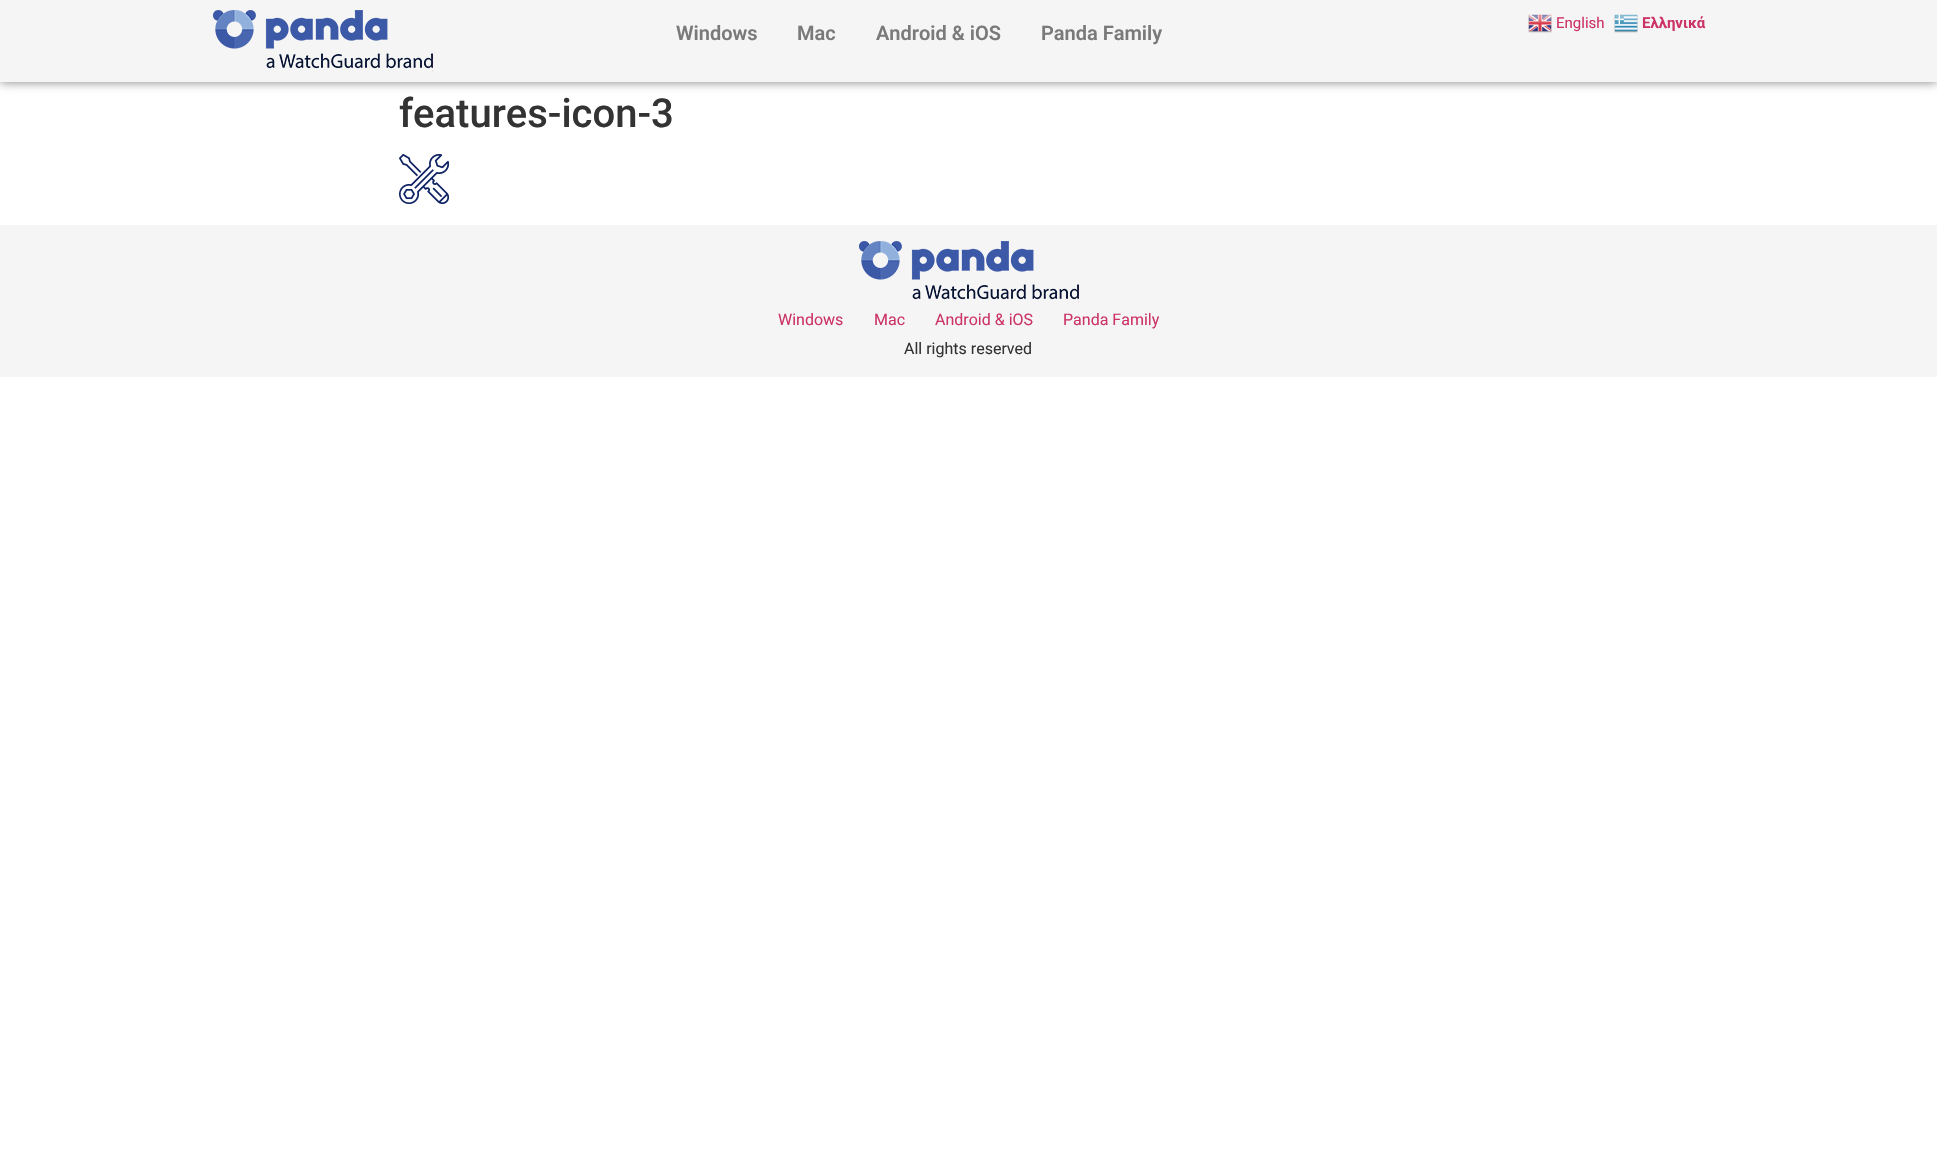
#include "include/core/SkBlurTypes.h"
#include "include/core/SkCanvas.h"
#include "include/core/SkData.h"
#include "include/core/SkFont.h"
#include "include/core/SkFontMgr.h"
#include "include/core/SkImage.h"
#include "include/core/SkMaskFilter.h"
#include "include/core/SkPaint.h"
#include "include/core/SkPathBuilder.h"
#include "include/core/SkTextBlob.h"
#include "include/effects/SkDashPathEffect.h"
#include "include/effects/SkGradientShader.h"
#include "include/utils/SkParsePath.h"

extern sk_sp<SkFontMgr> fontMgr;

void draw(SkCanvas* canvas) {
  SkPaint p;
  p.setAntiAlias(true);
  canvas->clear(SK_ColorWHITE);
  p.setColor(SkColorSetARGB(128, 0, 0, 0));
  p.setMaskFilter(SkMaskFilter::MakeBlur(kNormal_SkBlurStyle, 5));
  canvas->drawRect(SkRect::MakeLTRB(0, 0, 1937, 82), p);
  p.setMaskFilter(nullptr);
  p.setColor(SkColorSetRGB(245, 245, 245));
  canvas->drawRect(SkRect::MakeLTRB(0, 0, 1937, 82), p);
  canvas->drawImageRect(SkImages::DeferredFromEncodedData(SkData::MakeFromFileName("images/1.png")), SkRect::MakeLTRB(213, 10, 433, 72), SkSamplingOptions());
  canvas->drawImageRect(SkImages::DeferredFromEncodedData(SkData::MakeFromFileName("images/2.png")), SkRect::MakeLTRB(1528, 14, 1552, 33), SkSamplingOptions());
  canvas->drawImageRect(SkImages::DeferredFromEncodedData(SkData::MakeFromFileName("images/3.png")), SkRect::MakeLTRB(1614, 14, 1638, 33), SkSamplingOptions());
  canvas->drawImageRect(SkImages::DeferredFromEncodedData(SkData::MakeFromFileName("images/4.png")), SkRect::MakeLTRB(399, 154, 449, 204), SkSamplingOptions());
  canvas->drawRect(SkRect::MakeLTRB(0, 225, 1937, 377), p);
  canvas->drawImageRect(SkImages::DeferredFromEncodedData(SkData::MakeFromFileName("images/1.png")), SkRect::MakeLTRB(859, 241, 1079, 303), SkSamplingOptions());
  SkFont font1(fontMgr->matchFamilyStyle("Roboto", SkFontStyle(600, SkFontStyle::kNormal_Width, SkFontStyle::kUpright_Slant)), 20);
  font1.setSubpixel(true);
  p.setColor(SkColorSetRGB(122, 122, 122));
  canvas->drawString("Windows", 676, 40, font1, p);
  canvas->drawString("Mac", 797, 40, font1, p);
  canvas->drawString("Android & iOS", 876, 40, font1, p);
  canvas->drawString("Panda Family", 1041, 40, font1, p);
  SkFont font2(fontMgr->matchFamilyStyle("Roboto", SkFontStyle::Normal()), 15);
  font2.setSubpixel(true);
  p.setColor(SkColorSetRGB(204, 51, 102));
  canvas->drawString("English", 1556, 28, font2, p);
  SkFont font3(fontMgr->matchFamilyStyle("Roboto", SkFontStyle::Bold()), 15);
  font3.setSubpixel(true);
  canvas->drawString("Ελληνικά", 1642, 28, font3, p);
  SkFont font4(fontMgr->matchFamilyStyle("Roboto", SkFontStyle(500, SkFontStyle::kNormal_Width, SkFontStyle::kUpright_Slant)), 40);
  font4.setSubpixel(true);
  p.setColor(SkColorSetRGB(51, 51, 51));
  canvas->drawString("features-icon-3", 399, 127, font4, p);
  SkFont font5(fontMgr->matchFamilyStyle("Roboto", SkFontStyle::Normal()), 16);
  font5.setSubpixel(true);
  p.setColor(SkColorSetRGB(204, 51, 102));
  canvas->drawString("Windows", 778, 325, font5, p);
  canvas->drawString("Mac", 874, 325, font5, p);
  canvas->drawString("Android & iOS", 935, 325, font5, p);
  canvas->drawString("Panda Family", 1063, 325, font5, p);
  p.setColor(SkColorSetRGB(51, 51, 51));
  canvas->drawString("All rights reserved", 904, 354, font5, p);
}
